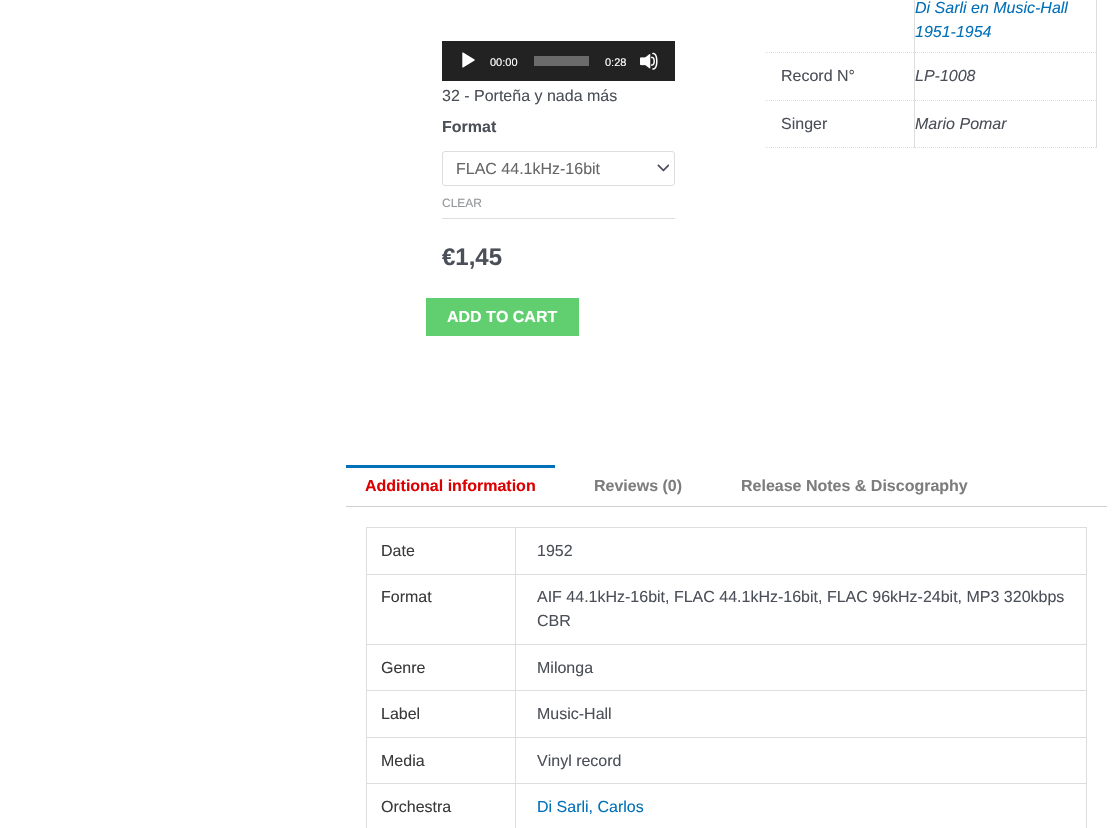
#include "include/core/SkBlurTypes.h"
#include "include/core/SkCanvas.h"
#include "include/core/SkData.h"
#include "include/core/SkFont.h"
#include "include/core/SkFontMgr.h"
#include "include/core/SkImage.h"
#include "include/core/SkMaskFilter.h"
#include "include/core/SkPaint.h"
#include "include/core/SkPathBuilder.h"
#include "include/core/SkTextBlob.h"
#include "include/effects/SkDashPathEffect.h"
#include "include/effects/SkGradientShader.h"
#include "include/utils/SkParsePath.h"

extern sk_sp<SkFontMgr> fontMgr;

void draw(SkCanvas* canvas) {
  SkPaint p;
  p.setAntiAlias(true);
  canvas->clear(SK_ColorWHITE);
  p.setColor(SkColorSetRGB(34, 34, 34));
  canvas->drawRect(SkRect::MakeLTRB(442, 41, 675, 81), p);
  canvas->drawImageRect(SkImages::DeferredFromEncodedData(SkData::MakeFromFileName("images/1.png")), SkRect::MakeLTRB(462, 52, 475, 68), SkSamplingOptions());
  p.setColor(SkColorSetRGB(107, 107, 107));
  canvas->drawRect(SkRect::MakeLTRB(534, 56, 589, 66), p);
  canvas->drawImageRect(SkImages::DeferredFromEncodedData(SkData::MakeFromFileName("images/2.png")), SkRect::MakeLTRB(640, 52, 658, 70), SkSamplingOptions());
  p.setColor(SkColorSetRGB(221, 221, 221));
  canvas->drawRect(SkRect::MakeLTRB(442, 218, 675, 219), p);
  canvas->drawImageRect(SkImages::DeferredFromEncodedData(SkData::MakeFromFileName("images/3.png")), SkRect::MakeLTRB(657, 164, 669, 172), SkSamplingOptions());
  p.setStyle(SkPaint::kStroke_Style);
  p.setStrokeWidth(1);
  canvas->drawRoundRect(SkRect::MakeLTRB(442.5f, 151.5f, 674.5f, 185.5f), 2.5f, 2.5f, p);
  p.setStyle(SkPaint::kFill_Style);
  p.setColor(SkColorSetRGB(97, 206, 112));
  canvas->drawRect(SkRect::MakeLTRB(426, 298, 579, 336), p);
  p.setColor(SkColorSetRGB(221, 221, 221));
  canvas->drawRect(SkRect::MakeLTRB(914, 0, 915, 148), p);
  p.setStyle(SkPaint::kStroke_Style);
  p.setPathEffect(SkDashPathEffect::Make({{1, 1}}, 0));
  canvas->drawPath(SkPathBuilder().moveTo(765, 52.5f).lineTo(915, 52.5f).detach(), p);
  p.setPathEffect(nullptr);
  p.setStyle(SkPaint::kFill_Style);
  canvas->drawRect(SkRect::MakeLTRB(1096, 0, 1097, 148), p);
  p.setStyle(SkPaint::kStroke_Style);
  p.setPathEffect(SkDashPathEffect::Make({{1, 1}}, 0));
  canvas->drawPath(SkPathBuilder().moveTo(915, 52.5f).lineTo(1097, 52.5f).detach(), p);
  p.setPathEffect(nullptr);
  p.setPathEffect(SkDashPathEffect::Make({{1, 1}}, 0));
  canvas->drawPath(SkPathBuilder().moveTo(765, 100.5f).lineTo(915, 100.5f).detach(), p);
  p.setPathEffect(nullptr);
  p.setPathEffect(SkDashPathEffect::Make({{1, 1}}, 0));
  canvas->drawPath(SkPathBuilder().moveTo(915, 100.5f).lineTo(1097, 100.5f).detach(), p);
  p.setPathEffect(nullptr);
  p.setPathEffect(SkDashPathEffect::Make({{1, 1}}, 0));
  canvas->drawPath(SkPathBuilder().moveTo(765, 147.5f).lineTo(915, 147.5f).detach(), p);
  p.setPathEffect(nullptr);
  p.setPathEffect(SkDashPathEffect::Make({{1, 1}}, 0));
  canvas->drawPath(SkPathBuilder().moveTo(915, 147.5f).lineTo(1097, 147.5f).detach(), p);
  p.setPathEffect(nullptr);
  p.setStyle(SkPaint::kFill_Style);
  p.setColor(SkColorSetRGB(1, 112, 185));
  canvas->drawRect(SkRect::MakeLTRB(346, 465, 555, 468), p);
  p.setColor(SkColorSetRGB(211, 206, 210));
  canvas->drawRect(SkRect::MakeLTRB(346, 506, 1107, 507), p);
  p.setColor(SkColorSetRGB(221, 221, 221));
  canvas->drawRect(SkRect::MakeLTRB(366, 527, 1087, 528), p);
  canvas->drawRect(SkRect::MakeLTRB(515, 528, 516, 828), p);
  canvas->drawRect(SkRect::MakeLTRB(366, 574, 516, 575), p);
  canvas->drawRect(SkRect::MakeLTRB(366, 528, 367, 575), p);
  canvas->drawRect(SkRect::MakeLTRB(1086, 528, 1087, 828), p);
  canvas->drawRect(SkRect::MakeLTRB(516, 574, 1087, 575), p);
  canvas->drawRect(SkRect::MakeLTRB(366, 644, 1087, 645), p);
  canvas->drawRect(SkRect::MakeLTRB(366, 575, 367, 645), p);
  canvas->drawRect(SkRect::MakeLTRB(366, 690, 1087, 691), p);
  canvas->drawRect(SkRect::MakeLTRB(366, 645, 367, 691), p);
  canvas->drawRect(SkRect::MakeLTRB(366, 737, 1087, 738), p);
  canvas->drawRect(SkRect::MakeLTRB(366, 691, 367, 738), p);
  canvas->drawRect(SkRect::MakeLTRB(366, 783, 1087, 784), p);
  canvas->drawRect(SkRect::MakeLTRB(366, 738, 367, 828), p);
  SkFont font1(fontMgr->matchFamilyStyle("Liberation Sans", SkFontStyle::Normal()), 11);
  font1.setSubpixel(true);
  p.setColor(SK_ColorWHITE);
  canvas->drawString("00:00", 490, 66, font1, p);
  canvas->drawString("0:28", 605, 66, font1, p);
  SkFont font2(fontMgr->matchFamilyStyle("Liberation Sans", SkFontStyle::Normal()), 16);
  font2.setSubpixel(true);
  p.setColor(SkColorSetRGB(75, 79, 88));
  canvas->drawString("32 - Porteña y nada más", 442, 101, font2, p);
  SkFont font3(fontMgr->matchFamilyStyle("Liberation Sans", SkFontStyle::Bold()), 16);
  font3.setSubpixel(true);
  canvas->drawString("Format", 442, 132, font3, p);
  p.setColor(SkColorSetRGB(102, 102, 102));
  canvas->drawString("FLAC 44.1kHz-16bit", 456, 174, font2, p);
  SkFont font4(fontMgr->matchFamilyStyle("Liberation Sans", SkFontStyle::Normal()), 12);
  font4.setSubpixel(true);
  p.setColor(SkColorSetRGB(147, 149, 155));
  canvas->drawString("CLEAR", 442, 207, font4, p);
  SkFont font5(fontMgr->matchFamilyStyle("Liberation Sans", SkFontStyle::Bold()), 24);
  font5.setSubpixel(true);
  p.setColor(SkColorSetRGB(75, 79, 88));
  canvas->drawString("€1,45", 442, 265, font5, p);
  p.setColor(SK_ColorWHITE);
  canvas->drawString("ADD TO CART", 447, 322, font3, p);
  SkFont font6(fontMgr->matchFamilyStyle("Liberation Sans", SkFontStyle::Italic()), 16);
  font6.setSubpixel(true);
  p.setColor(SkColorSetRGB(1, 112, 185));
  canvas->drawString("Di Sarli en Music-Hall", 915, 13, font6, p);
  canvas->drawString("1951-1954", 915, 37, font6, p);
  p.setColor(SkColorSetRGB(75, 79, 88));
  canvas->drawString("Record N°", 781, 81, font2, p);
  canvas->drawString("LP-1008", 915, 81, font6, p);
  canvas->drawString("Singer", 781, 129, font2, p);
  canvas->drawString("Mario Pomar", 915, 129, font6, p);
  p.setColor(SkColorSetRGB(221, 0, 0));
  canvas->drawString("Additional information", 365, 491, font3, p);
  p.setColor(SkColorSetRGB(125, 125, 125));
  canvas->drawString("Reviews (0)", 594, 491, font3, p);
  canvas->drawString("Release Notes & Discography", 741, 491, font3, p);
  p.setColor(SkColorSetRGB(58, 58, 58));
  canvas->drawString("Date", 381, 556, font2, p);
  p.setColor(SkColorSetRGB(75, 79, 88));
  canvas->drawString("1952", 537, 556, font2, p);
  p.setColor(SkColorSetRGB(58, 58, 58));
  canvas->drawString("Format", 381, 602, font2, p);
  p.setColor(SkColorSetRGB(75, 79, 88));
  canvas->drawString("AIF 44.1kHz-16bit, FLAC 44.1kHz-16bit, FLAC 96kHz-24bit, MP3 320kbps", 537, 602, font2, p);
  canvas->drawString("CBR", 537, 626, font2, p);
  p.setColor(SkColorSetRGB(58, 58, 58));
  canvas->drawString("Genre", 381, 673, font2, p);
  p.setColor(SkColorSetRGB(75, 79, 88));
  canvas->drawString("Milonga", 537, 673, font2, p);
  p.setColor(SkColorSetRGB(58, 58, 58));
  canvas->drawString("Label", 381, 719, font2, p);
  p.setColor(SkColorSetRGB(75, 79, 88));
  canvas->drawString("Music-Hall", 537, 719, font2, p);
  p.setColor(SkColorSetRGB(58, 58, 58));
  canvas->drawString("Media", 381, 766, font2, p);
  p.setColor(SkColorSetRGB(75, 79, 88));
  canvas->drawString("Vinyl record", 537, 766, font2, p);
  p.setColor(SkColorSetRGB(58, 58, 58));
  canvas->drawString("Orchestra", 381, 812, font2, p);
  p.setColor(SkColorSetRGB(1, 112, 185));
  canvas->drawString("Di Sarli, Carlos", 537, 812, font2, p);
}
